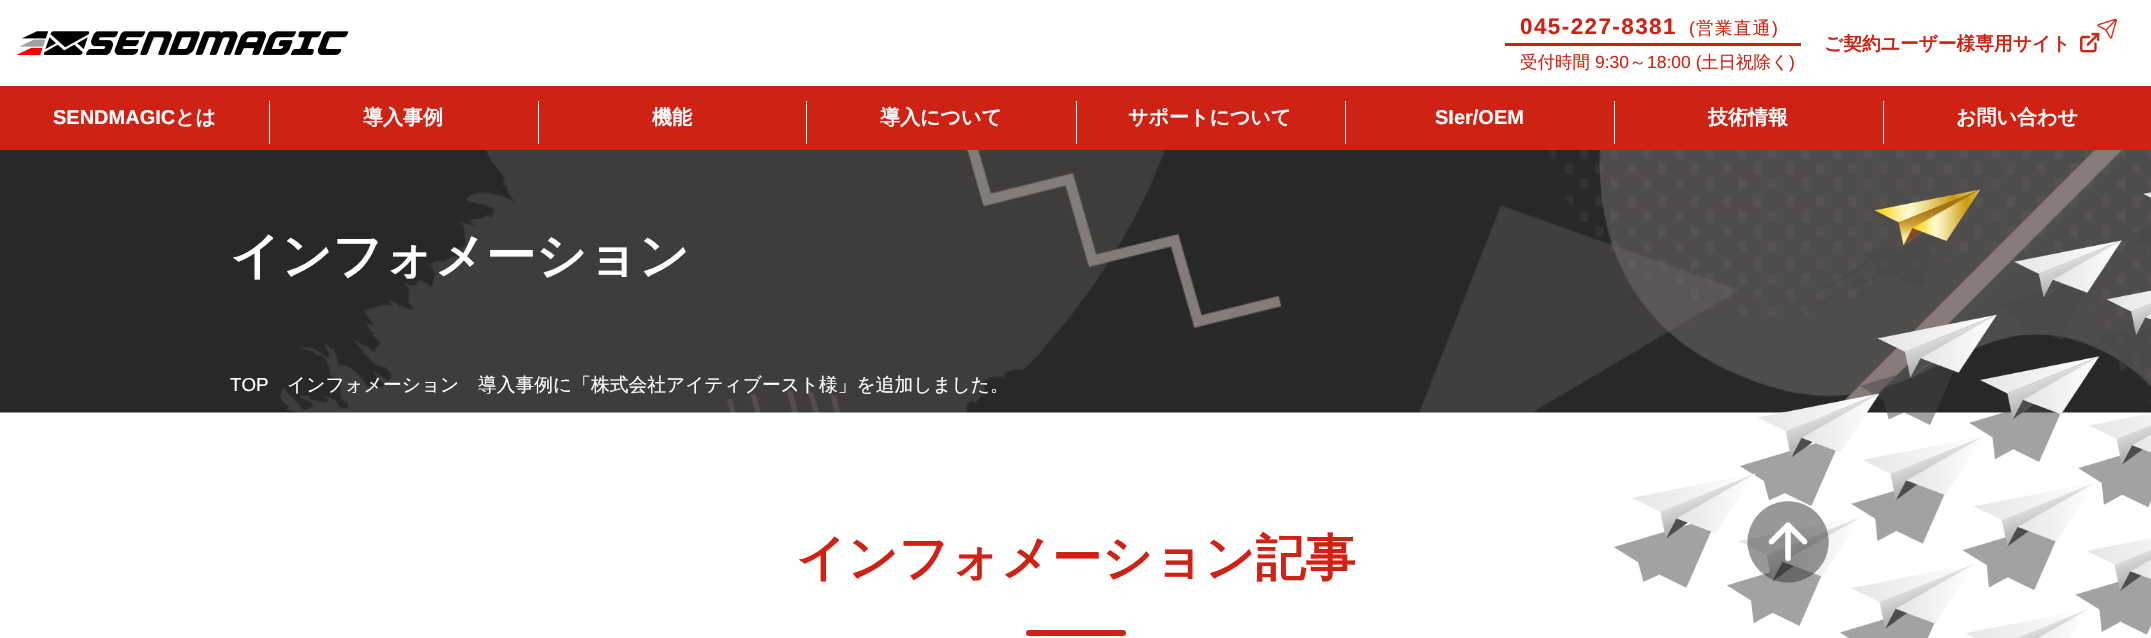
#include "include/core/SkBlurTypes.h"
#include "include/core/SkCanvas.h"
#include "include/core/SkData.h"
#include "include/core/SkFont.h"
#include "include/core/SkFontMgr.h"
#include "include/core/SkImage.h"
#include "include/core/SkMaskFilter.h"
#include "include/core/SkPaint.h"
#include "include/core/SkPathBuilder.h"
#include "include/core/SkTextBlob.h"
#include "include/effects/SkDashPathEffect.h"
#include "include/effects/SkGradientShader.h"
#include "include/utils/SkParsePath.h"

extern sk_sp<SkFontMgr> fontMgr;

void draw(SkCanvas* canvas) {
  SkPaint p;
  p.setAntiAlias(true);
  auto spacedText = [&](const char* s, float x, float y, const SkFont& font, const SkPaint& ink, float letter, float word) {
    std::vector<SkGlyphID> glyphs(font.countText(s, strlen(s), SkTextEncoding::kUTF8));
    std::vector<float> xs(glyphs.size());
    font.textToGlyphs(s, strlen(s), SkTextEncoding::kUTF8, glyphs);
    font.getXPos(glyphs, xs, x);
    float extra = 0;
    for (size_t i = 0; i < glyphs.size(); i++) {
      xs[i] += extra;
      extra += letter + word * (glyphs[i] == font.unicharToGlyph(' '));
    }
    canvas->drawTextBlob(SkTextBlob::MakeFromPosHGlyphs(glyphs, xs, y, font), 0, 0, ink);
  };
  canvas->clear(SK_ColorWHITE);
  canvas->drawImageRect(SkImages::DeferredFromEncodedData(SkData::MakeFromFileName("images/1.png")), SkRect::MakeLTRB(16, 31, 349, 55), SkSamplingOptions());
  p.setColor(SkColorSetRGB(206, 35, 20));
  canvas->drawRect(SkRect::MakeLTRB(1505, 43, 1801, 46), p);
  canvas->drawImageRect(SkImages::DeferredFromEncodedData(SkData::MakeFromFileName("images/2.png")), SkRect::MakeLTRB(2097, 18, 2118, 39), SkSamplingOptions());
  canvas->drawImageRect(SkImages::DeferredFromEncodedData(SkData::MakeFromFileName("images/3.png")), SkRect::MakeLTRB(2080, 32, 2100, 53), SkSamplingOptions());
  canvas->drawRect(SkRect::MakeLTRB(0, 86, 2151, 150), p);
  p.setColor(SK_ColorWHITE);
  canvas->drawRect(SkRect::MakeLTRB(269, 101, 270, 144), p);
  canvas->drawRect(SkRect::MakeLTRB(538, 101, 539, 144), p);
  canvas->drawRect(SkRect::MakeLTRB(806, 101, 807, 144), p);
  canvas->drawRect(SkRect::MakeLTRB(1076, 101, 1077, 144), p);
  canvas->drawRect(SkRect::MakeLTRB(1345, 101, 1346, 144), p);
  canvas->drawRect(SkRect::MakeLTRB(1614, 101, 1615, 144), p);
  canvas->drawRect(SkRect::MakeLTRB(1883, 101, 1884, 144), p);
  canvas->drawImageRect(SkImages::DeferredFromEncodedData(SkData::MakeFromFileName("images/4.png")), SkRect::MakeLTRB(0, 150, 2151, 413), SkSamplingOptions());
  canvas->drawImageRect(SkImages::DeferredFromEncodedData(SkData::MakeFromFileName("images/5.png")), SkRect::MakeLTRB(1614, 189, 2151, 638), SkSamplingOptions());
  p.setColor(SkColorSetRGB(206, 35, 20));
  canvas->drawRoundRect(SkRect::MakeLTRB(1026, 630, 1126, 636), 3, 3, p);
  canvas->drawImageRect(SkImages::DeferredFromEncodedData(SkData::MakeFromFileName("images/6.png")), SkRect::MakeLTRB(1747, 501, 1829, 583), SkSamplingOptions());
  SkFont font1(fontMgr->matchFamilyStyle("Liberation Sans", SkFontStyle::Bold()), 22.5f);
  font1.setSubpixel(true);
  spacedText("045-227-8381", 1520, 34, font1, p, 1.4f, 0);
  SkFont font2(fontMgr->matchFamilyStyle("Liberation Sans", SkFontStyle::Normal()), 17.5f);
  font2.setSubpixel(true);
  spacedText("(", 1689, 34, font2, p, 1.4f, 0);
  SkFont font3(fontMgr->matchFamilyStyle("WenQuanYi Zen Hei", SkFontStyle(500, SkFontStyle::kNormal_Width, SkFontStyle::kUpright_Slant)), 17.5f);
  font3.setSubpixel(true);
  spacedText("営業直通", 1696, 34, font3, p, 1.4f, 0);
  spacedText(")", 1772, 34, font2, p, 1.4f, 0);
  canvas->drawString("受付時間", 1520, 68, font3, p);
  canvas->drawString("9:30", 1595, 68, font2, p);
  canvas->drawString("～", 1629, 68, font3, p);
  canvas->drawString("18:00 (", 1647, 68, font2, p);
  canvas->drawString("土日祝除く", 1701, 68, font3, p);
  canvas->drawString(")", 1789, 68, font2, p);
  SkFont font4(fontMgr->matchFamilyStyle("WenQuanYi Zen Hei", SkFontStyle::Bold()), 18.75f);
  font4.setSubpixel(true);
  canvas->drawString("ご契約ユーザー様専用サイト", 1824, 50, font4, p);
  SkFont font5(fontMgr->matchFamilyStyle("Liberation Sans", SkFontStyle::Bold()), 20);
  font5.setSubpixel(true);
  p.setColor(SK_ColorWHITE);
  canvas->drawString("SENDMAGIC", 53, 124, font5, p);
  SkFont font6(fontMgr->matchFamilyStyle("WenQuanYi Zen Hei", SkFontStyle::Bold()), 20);
  font6.setSubpixel(true);
  canvas->drawString("とは", 175, 124, font6, p);
  canvas->drawString("導入事例", 363, 124, font6, p);
  canvas->drawString("機能", 652, 124, font6, p);
  canvas->drawString("導入について", 880, 124, font6, p);
  canvas->drawString("サポートについて", 1128, 124, font6, p);
  canvas->drawString("SIer/OEM", 1435, 124, font5, p);
  canvas->drawString("技術情報", 1708, 124, font6, p);
  canvas->drawString("お問い合わせ", 1956, 124, font6, p);
  SkFont font7(fontMgr->matchFamilyStyle("WenQuanYi Zen Hei", SkFontStyle::Bold()), 50);
  font7.setSubpixel(true);
  canvas->drawString("インフォメーション", 230, 273, font7, p);
  SkFont font8(fontMgr->matchFamilyStyle("Liberation Sans", SkFontStyle::Normal()), 18.75f);
  font8.setSubpixel(true);
  canvas->drawString("TOP", 230, 391, font8, p);
  SkFont font9(fontMgr->matchFamilyStyle("WenQuanYi Zen Hei", SkFontStyle(500, SkFontStyle::kNormal_Width, SkFontStyle::kUpright_Slant)), 18.75f);
  font9.setSubpixel(true);
  canvas->drawString("インフォメーション", 287, 391, font9, p);
  canvas->drawString("導入事例に「株式会社アイティブースト様」を追加しました。", 478, 391, font9, p);
  p.setColor(SkColorSetRGB(206, 35, 20));
  canvas->drawString("インフォメーション記事", 796, 575, font7, p);
}
